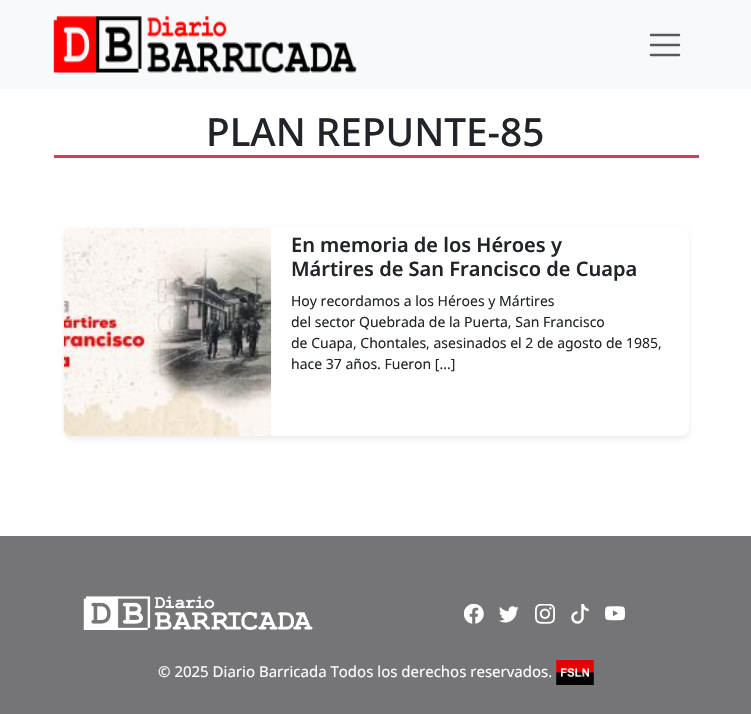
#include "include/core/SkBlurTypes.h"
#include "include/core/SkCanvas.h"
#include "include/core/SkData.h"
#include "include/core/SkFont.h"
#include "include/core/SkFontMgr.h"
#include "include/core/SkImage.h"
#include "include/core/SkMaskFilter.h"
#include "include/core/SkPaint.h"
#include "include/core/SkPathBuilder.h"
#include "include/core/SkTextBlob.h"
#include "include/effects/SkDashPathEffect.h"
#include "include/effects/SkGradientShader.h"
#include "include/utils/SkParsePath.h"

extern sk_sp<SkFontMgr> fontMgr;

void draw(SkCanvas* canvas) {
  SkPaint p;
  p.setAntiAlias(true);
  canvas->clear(SK_ColorWHITE);
  p.setColor(SkColorSetRGB(248, 249, 250));
  canvas->drawRect(SkRect::MakeLTRB(0, 0, 751, 89), p);
  canvas->drawImageRect(SkImages::DeferredFromEncodedData(SkData::MakeFromFileName("images/1.png")), SkRect::MakeLTRB(53, 16, 357, 73), SkSamplingOptions());
  p.setStyle(SkPaint::kStroke_Style);
  p.setStrokeWidth(2.5f);
  p.setStrokeCap(SkPaint::kRound_Cap);
  p.setColor(SkColorSetRGB(87, 90, 93));
  canvas->drawPath(SkPathBuilder().moveTo(651, 35).lineTo(679, 35).moveTo(651, 45).lineTo(679, 45).moveTo(651, 55).lineTo(679, 55).detach(), p);
  p.setStyle(SkPaint::kFill_Style);
  p.setColor(SkColorSetRGB(205, 65, 90));
  canvas->drawRect(SkRect::MakeLTRB(54, 155, 699, 158), p);
  p.setColor(SkColorSetARGB(18, 0, 0, 0));
  p.setMaskFilter(SkMaskFilter::MakeBlur(kNormal_SkBlurStyle, 2.5f));
  canvas->drawRoundRect(SkRect::MakeLTRB(64, 230, 689, 439), 8, 8, p);
  p.setMaskFilter(nullptr);
  p.setColor(SK_ColorWHITE);
  canvas->drawRoundRect(SkRect::MakeLTRB(64, 228, 689, 436), 8, 8, p);
  canvas->drawImageRect(SkImages::DeferredFromEncodedData(SkData::MakeFromFileName("images/2.png")), SkRect::MakeLTRB(63, 227, 272, 436), SkSamplingOptions());
  p.setColor(SkColorSetRGB(117, 116, 118));
  canvas->drawRect(SkRect::MakeLTRB(0, 536, 751, 714), p);
  canvas->drawImageRect(SkImages::DeferredFromEncodedData(SkData::MakeFromFileName("images/3.png")), SkRect::MakeLTRB(83, 596, 313, 630), SkSamplingOptions());
  canvas->drawImageRect(SkImages::DeferredFromEncodedData(SkData::MakeFromFileName("images/4.png")), SkRect::MakeLTRB(464, 604, 484, 624), SkSamplingOptions());
  canvas->drawImageRect(SkImages::DeferredFromEncodedData(SkData::MakeFromFileName("images/5.png")), SkRect::MakeLTRB(499, 606, 519, 623), SkSamplingOptions());
  canvas->drawImageRect(SkImages::DeferredFromEncodedData(SkData::MakeFromFileName("images/6.png")), SkRect::MakeLTRB(535, 604, 555, 624), SkSamplingOptions());
  canvas->drawImageRect(SkImages::DeferredFromEncodedData(SkData::MakeFromFileName("images/7.png")), SkRect::MakeLTRB(571, 604, 589, 624), SkSamplingOptions());
  canvas->drawImageRect(SkImages::DeferredFromEncodedData(SkData::MakeFromFileName("images/8.png")), SkRect::MakeLTRB(605, 606, 625, 621), SkSamplingOptions());
  canvas->drawImageRect(SkImages::DeferredFromEncodedData(SkData::MakeFromFileName("images/9.png")), SkRect::MakeLTRB(556, 660, 594, 685), SkSamplingOptions());
  SkFont font1(fontMgr->matchFamilyStyle("Noto Sans", SkFontStyle(500, SkFontStyle::kNormal_Width, SkFontStyle::kUpright_Slant)), 38.75f);
  font1.setSubpixel(true);
  p.setColor(SkColorSetRGB(33, 37, 41));
  canvas->drawString("PLAN REPUNTE-85", 206, 146, font1, p);
  SkFont font2(fontMgr->matchFamilyStyle("Noto Sans", SkFontStyle(600, SkFontStyle::kNormal_Width, SkFontStyle::kUpright_Slant)), 20);
  font2.setSubpixel(true);
  canvas->drawString("En memoria de los Héroes y", 291, 252, font2, p);
  canvas->drawString("Mártires de San Francisco de Cuapa", 291, 276, font2, p);
  SkFont font3(fontMgr->matchFamilyStyle("Noto Sans", SkFontStyle::Normal()), 14);
  font3.setSubpixel(true);
  canvas->drawString("Hoy recordamos a los Héroes y Mártires", 291, 306, font3, p);
  canvas->drawString("del sector Quebrada de la Puerta, San Francisco", 291, 327, font3, p);
  canvas->drawString("de Cuapa, Chontales, asesinados el 2 de agosto de 1985,", 291, 348, font3, p);
  canvas->drawString("hace 37 años. Fueron [...]", 291, 369, font3, p);
  SkFont font4(fontMgr->matchFamilyStyle("Noto Sans", SkFontStyle::Normal()), 15);
  font4.setSubpixel(true);
  p.setColor(SK_ColorWHITE);
  canvas->drawString("© 2025 Diario Barricada Todos los derechos reservados.", 158, 677, font4, p);
}
